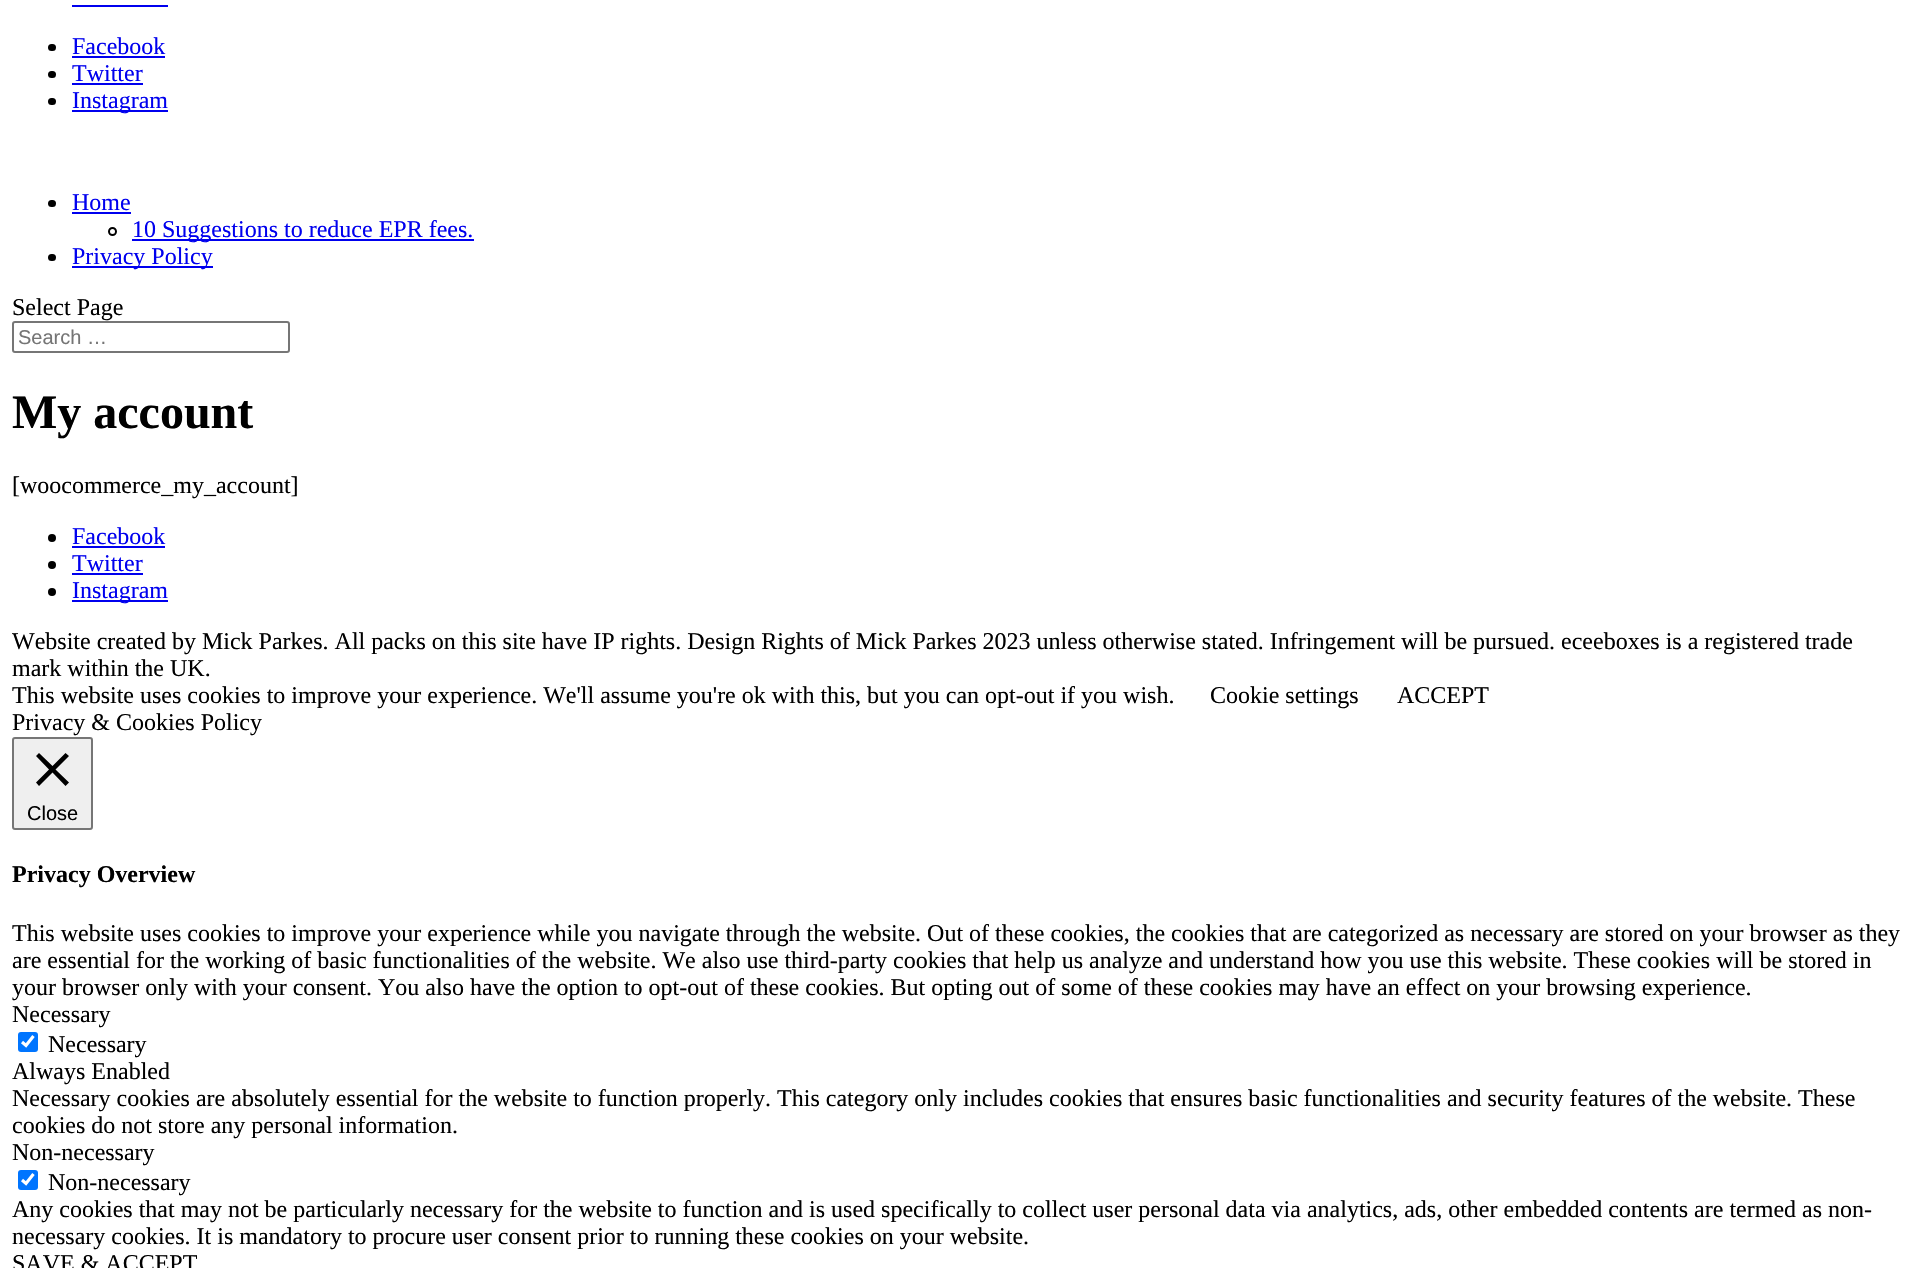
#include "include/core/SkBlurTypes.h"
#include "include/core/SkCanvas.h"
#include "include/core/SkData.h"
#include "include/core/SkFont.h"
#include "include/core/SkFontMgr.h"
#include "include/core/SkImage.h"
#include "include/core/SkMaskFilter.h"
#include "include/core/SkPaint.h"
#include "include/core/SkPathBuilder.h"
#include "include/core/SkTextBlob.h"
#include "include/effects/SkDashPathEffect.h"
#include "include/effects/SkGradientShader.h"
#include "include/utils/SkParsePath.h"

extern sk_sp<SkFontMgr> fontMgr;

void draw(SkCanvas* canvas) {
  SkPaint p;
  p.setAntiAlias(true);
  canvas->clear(SK_ColorWHITE);
  p.setColor(SkColorSetRGB(0, 0, 238));
  canvas->drawRect(SkRect::MakeLTRB(72, 5, 168, 7), p);
  p.setColor(SK_ColorBLACK);
  canvas->drawRoundRect(SkRect::MakeLTRB(48, 44, 56, 51), 3.5f, 3.5f, p);
  p.setColor(SkColorSetRGB(0, 0, 238));
  canvas->drawRect(SkRect::MakeLTRB(72, 56, 165, 58), p);
  p.setColor(SK_ColorBLACK);
  canvas->drawRoundRect(SkRect::MakeLTRB(48, 71, 56, 78), 3.5f, 3.5f, p);
  p.setColor(SkColorSetRGB(0, 0, 238));
  canvas->drawRect(SkRect::MakeLTRB(72, 83, 143, 85), p);
  p.setColor(SK_ColorBLACK);
  canvas->drawRoundRect(SkRect::MakeLTRB(48, 98, 56, 105), 3.5f, 3.5f, p);
  p.setColor(SkColorSetRGB(0, 0, 238));
  canvas->drawRect(SkRect::MakeLTRB(72, 110, 168, 112), p);
  p.setColor(SK_ColorBLACK);
  canvas->drawRoundRect(SkRect::MakeLTRB(48, 200, 56, 207), 3.5f, 3.5f, p);
  p.setColor(SkColorSetRGB(0, 0, 238));
  canvas->drawRect(SkRect::MakeLTRB(72, 212, 131, 214), p);
  p.setStyle(SkPaint::kStroke_Style);
  p.setStrokeWidth(2);
  p.setColor(SK_ColorBLACK);
  canvas->drawCircle(112.5f, 231.5f, 3.5f, p);
  p.setStyle(SkPaint::kFill_Style);
  p.setColor(SkColorSetRGB(0, 0, 238));
  canvas->drawRect(SkRect::MakeLTRB(132, 239, 474, 241), p);
  p.setColor(SK_ColorBLACK);
  canvas->drawRoundRect(SkRect::MakeLTRB(48, 254, 56, 261), 3.5f, 3.5f, p);
  p.setColor(SkColorSetRGB(0, 0, 238));
  canvas->drawRect(SkRect::MakeLTRB(72, 266, 213, 268), p);
  p.setStyle(SkPaint::kStroke_Style);
  p.setColor(SkColorSetRGB(118, 118, 118));
  canvas->drawRoundRect(SkRect::MakeLTRB(13, 322, 289, 352), 2, 2, p);
  p.setStyle(SkPaint::kFill_Style);
  p.setColor(SK_ColorBLACK);
  canvas->drawCircle(52, 538, 4, p);
  p.setColor(SkColorSetRGB(0, 0, 238));
  canvas->drawRect(SkRect::MakeLTRB(72, 546, 165, 548), p);
  p.setColor(SK_ColorBLACK);
  canvas->drawCircle(52, 565, 4, p);
  p.setColor(SkColorSetRGB(0, 0, 238));
  canvas->drawRect(SkRect::MakeLTRB(72, 573, 143, 575), p);
  p.setColor(SK_ColorBLACK);
  canvas->drawCircle(52, 592, 4, p);
  p.setColor(SkColorSetRGB(0, 0, 238));
  canvas->drawRect(SkRect::MakeLTRB(72, 600, 168, 602), p);
  p.setColor(SkColorSetRGB(239, 239, 239));
  canvas->drawRoundRect(SkRect::MakeLTRB(13, 738, 92, 829), 2, 2, p);
  p.setStyle(SkPaint::kStroke_Style);
  p.setColor(SkColorSetRGB(118, 118, 118));
  canvas->drawRoundRect(SkRect::MakeLTRB(13, 738, 92, 829), 2, 2, p);
  p.setStyle(SkPaint::kFill_Style);
  p.setColor(SK_ColorBLACK);
  canvas->drawPath(SkPathBuilder().moveTo(69, 756).lineTo(65.5f, 753).lineTo(52.5f, 766).lineTo(39, 753).lineTo(36, 756).lineTo(49, 769.5f).lineTo(36, 782.5f).lineTo(39, 786).lineTo(52.5f, 772.5f).lineTo(65.5f, 786).lineTo(69, 782.5f).lineTo(55.5f, 769.5f).close().detach(), p);
  p.setColor(SkColorSetRGB(0, 117, 255));
  canvas->drawRoundRect(SkRect::MakeLTRB(18, 1032, 38, 1052), 3, 3, p);
  p.setStyle(SkPaint::kStroke_Style);
  p.setStrokeWidth(3.1f);
  p.setColor(SK_ColorWHITE);
  canvas->drawPath(SkPathBuilder().moveTo(22, 1042).lineTo(26, 1045.5f).lineTo(33.5f, 1036).detach(), p);
  p.setStyle(SkPaint::kFill_Style);
  p.setColor(SkColorSetRGB(0, 117, 255));
  canvas->drawRoundRect(SkRect::MakeLTRB(18, 1170, 38, 1190), 3, 3, p);
  p.setStyle(SkPaint::kStroke_Style);
  p.setColor(SK_ColorWHITE);
  canvas->drawPath(SkPathBuilder().moveTo(22, 1180).lineTo(26, 1183.5f).lineTo(33.5f, 1174).detach(), p);
  SkFont font1(fontMgr->matchFamilyStyle("Liberation Serif", SkFontStyle::Normal()), 24);
  font1.setSubpixel(true);
  p.setStyle(SkPaint::kFill_Style);
  p.setColor(SkColorSetRGB(0, 0, 238));
  canvas->drawString("Facebook", 72, 54, font1, p);
  canvas->drawString("Twitter", 72, 81, font1, p);
  canvas->drawString("Instagram", 72, 108, font1, p);
  canvas->drawString("Home", 72, 210, font1, p);
  canvas->drawString("10 Suggestions to reduce EPR fees.", 132, 237, font1, p);
  canvas->drawString("Privacy Policy", 72, 264, font1, p);
  p.setColor(SK_ColorBLACK);
  canvas->drawString("Select Page", 12, 315, font1, p);
  SkFont font2(fontMgr->matchFamilyStyle("Liberation Sans", SkFontStyle::Normal()), 20);
  font2.setSubpixel(true);
  p.setColor(SkColorSetRGB(117, 117, 117));
  canvas->drawString("Search …", 18, 344, font2, p);
  SkFont font3(fontMgr->matchFamilyStyle("Liberation Serif", SkFontStyle::Bold()), 48);
  font3.setSubpixel(true);
  p.setColor(SK_ColorBLACK);
  canvas->drawString("My account", 12, 428, font3, p);
  canvas->drawString("[woocommerce_my_account]", 12, 493, font1, p);
  p.setColor(SkColorSetRGB(0, 0, 238));
  canvas->drawString("Facebook", 72, 544, font1, p);
  canvas->drawString("Twitter", 72, 571, font1, p);
  canvas->drawString("Instagram", 72, 598, font1, p);
  p.setColor(SK_ColorBLACK);
  canvas->drawString("Website created by Mick Parkes. All packs on this site have IP rights. Design Rights of Mick Parkes 2023 unless otherwise stated. Infringement will be pursued. eceeboxes is a registered trade", 12, 649, font1, p);
  canvas->drawString("mark within the UK.", 12, 676, font1, p);
  canvas->drawString("This website uses cookies to improve your experience. We'll assume you're ok with this, but you can opt-out if you wish.", 12, 703, font1, p);
  canvas->drawString("Cookie settings", 1210, 703, font1, p);
  canvas->drawString("ACCEPT", 1397, 703, font1, p);
  canvas->drawString("Privacy & Cookies Policy", 12, 730, font1, p);
  canvas->drawString("Close", 27, 820, font2, p);
  SkFont font4(fontMgr->matchFamilyStyle("Liberation Serif", SkFontStyle::Bold()), 24);
  font4.setSubpixel(true);
  canvas->drawString("Privacy Overview", 12, 882, font4, p);
  canvas->drawString("This website uses cookies to improve your experience while you navigate through the website. Out of these cookies, the cookies that are categorized as necessary are stored on your browser as they", 12, 941, font1, p);
  canvas->drawString("are essential for the working of basic functionalities of the website. We also use third-party cookies that help us analyze and understand how you use this website. These cookies will be stored in", 12, 968, font1, p);
  canvas->drawString("your browser only with your consent. You also have the option to opt-out of these cookies. But opting out of some of these cookies may have an effect on your browsing experience.", 12, 995, font1, p);
  canvas->drawString("Necessary", 12, 1022, font1, p);
  canvas->drawString("Necessary", 48, 1052, font1, p);
  canvas->drawString("Always Enabled", 12, 1079, font1, p);
  canvas->drawString("Necessary cookies are absolutely essential for the website to function properly. This category only includes cookies that ensures basic functionalities and security features of the website. These", 12, 1106, font1, p);
  canvas->drawString("cookies do not store any personal information.", 12, 1133, font1, p);
  canvas->drawString("Non-necessary", 12, 1160, font1, p);
  canvas->drawString("Non-necessary", 48, 1190, font1, p);
  canvas->drawString("Any cookies that may not be particularly necessary for the website to function and is used specifically to collect user personal data via analytics, ads, other embedded contents are termed as non-", 12, 1217, font1, p);
  canvas->drawString("necessary cookies. It is mandatory to procure user consent prior to running these cookies on your website.", 12, 1244, font1, p);
  canvas->drawString("SAVE & ACCEPT", 12, 1271, font1, p);
}
